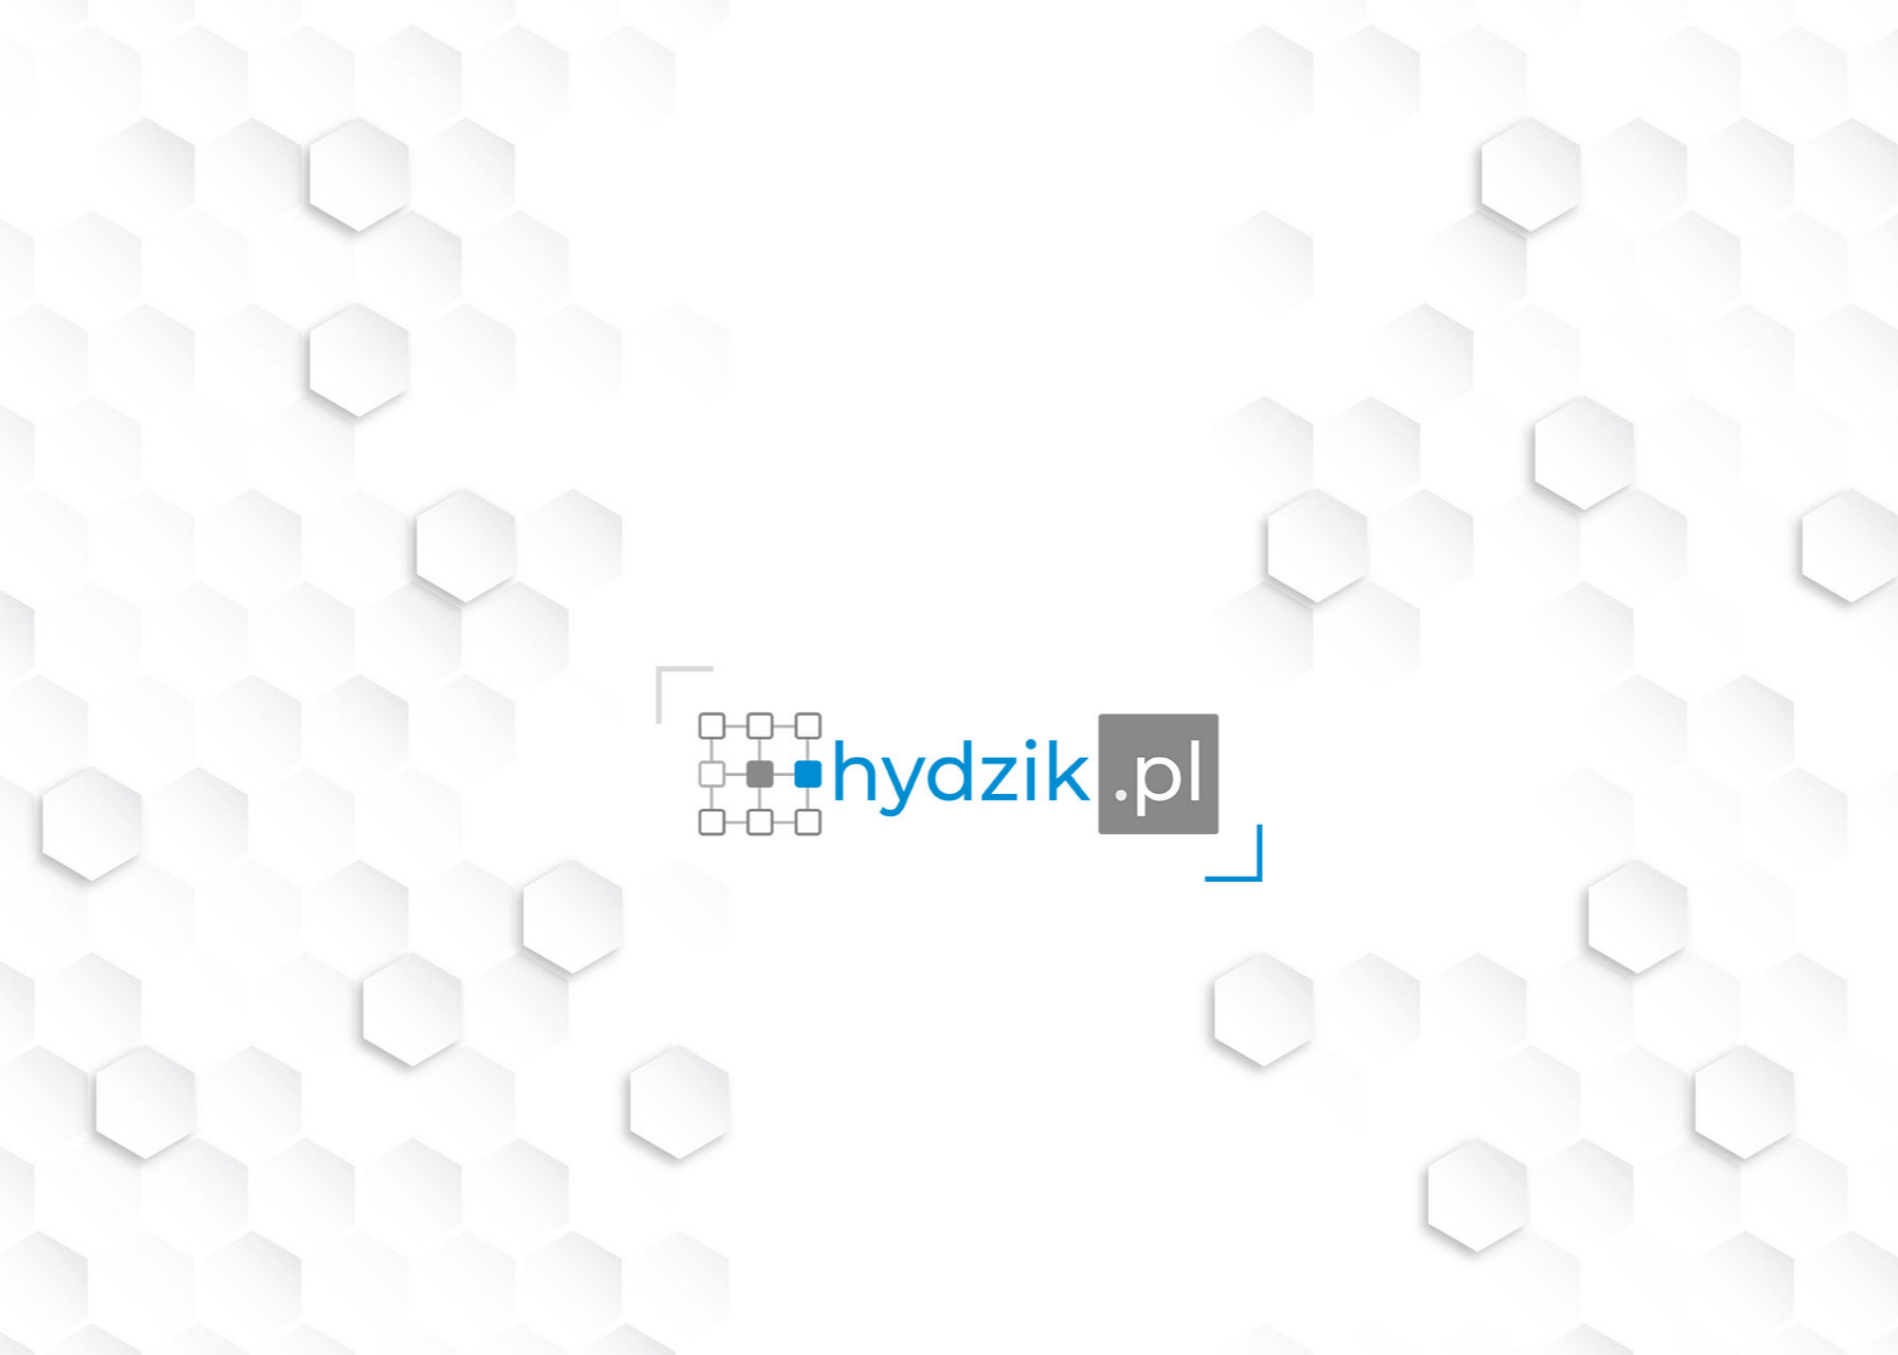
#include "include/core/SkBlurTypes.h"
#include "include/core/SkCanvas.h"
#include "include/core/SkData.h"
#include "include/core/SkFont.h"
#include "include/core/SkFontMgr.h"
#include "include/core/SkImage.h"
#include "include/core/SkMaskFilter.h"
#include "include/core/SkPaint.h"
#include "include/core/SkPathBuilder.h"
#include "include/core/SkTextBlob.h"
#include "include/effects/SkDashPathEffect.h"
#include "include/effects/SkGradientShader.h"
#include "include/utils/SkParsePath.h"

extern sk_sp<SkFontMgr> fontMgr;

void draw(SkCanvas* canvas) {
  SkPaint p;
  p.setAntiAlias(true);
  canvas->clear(SK_ColorWHITE);
  canvas->drawImageRect(SkImages::DeferredFromEncodedData(SkData::MakeFromFileName("images/1.png")), SkRect::MakeLTRB(0, 0, 1898, 1355), SkSamplingOptions());
}
